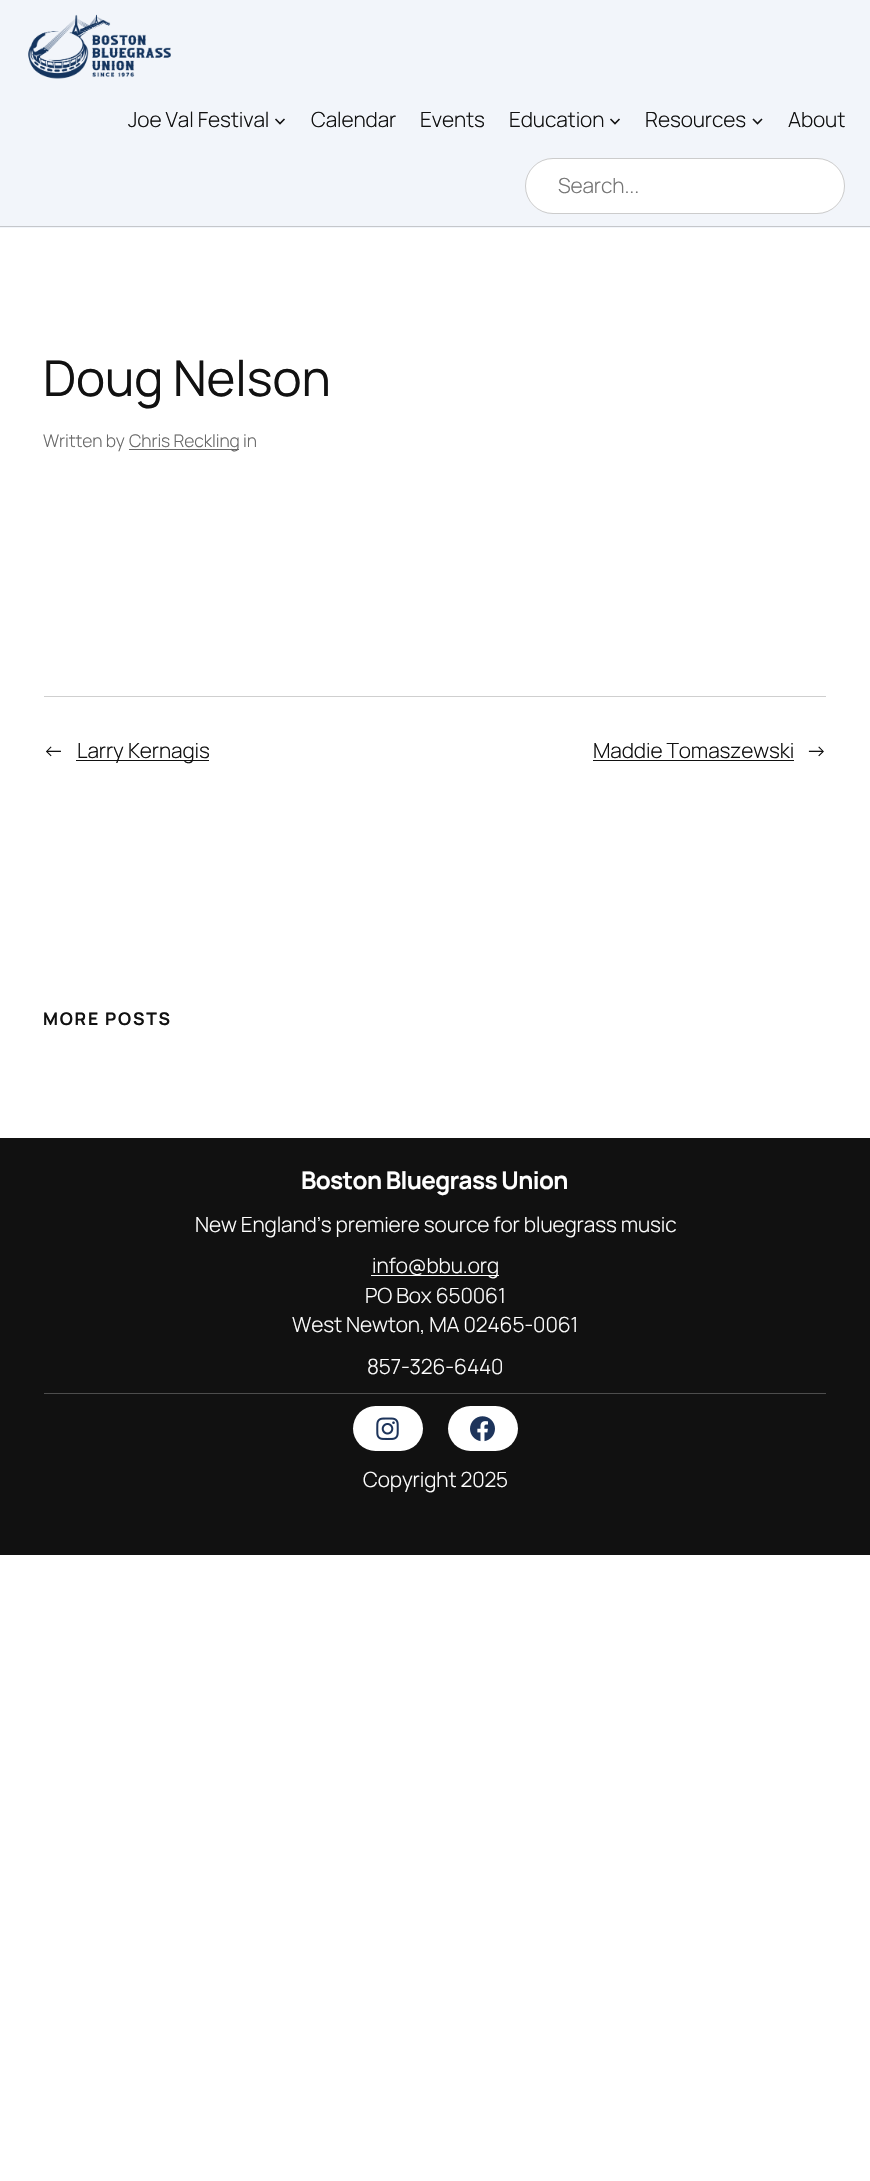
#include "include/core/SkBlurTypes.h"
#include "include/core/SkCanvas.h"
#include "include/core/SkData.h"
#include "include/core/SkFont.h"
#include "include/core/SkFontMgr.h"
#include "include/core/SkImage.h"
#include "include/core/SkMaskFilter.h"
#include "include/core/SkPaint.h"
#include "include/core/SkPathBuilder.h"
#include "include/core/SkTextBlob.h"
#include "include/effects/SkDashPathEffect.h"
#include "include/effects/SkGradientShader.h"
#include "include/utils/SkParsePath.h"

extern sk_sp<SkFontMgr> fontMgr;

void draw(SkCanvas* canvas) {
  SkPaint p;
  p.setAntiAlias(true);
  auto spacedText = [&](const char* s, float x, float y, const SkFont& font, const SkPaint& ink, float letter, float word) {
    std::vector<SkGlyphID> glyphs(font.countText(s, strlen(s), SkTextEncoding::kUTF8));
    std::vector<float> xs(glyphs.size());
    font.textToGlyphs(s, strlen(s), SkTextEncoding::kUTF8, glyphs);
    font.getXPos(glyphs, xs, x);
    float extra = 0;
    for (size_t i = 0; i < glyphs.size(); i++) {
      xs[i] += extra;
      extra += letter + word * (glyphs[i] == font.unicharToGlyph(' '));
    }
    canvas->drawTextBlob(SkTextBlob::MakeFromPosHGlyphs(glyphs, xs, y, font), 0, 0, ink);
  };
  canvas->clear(SK_ColorWHITE);
  p.setColor(SkColorSetRGB(242, 245, 250));
  canvas->drawRect(SkRect::MakeLTRB(0, 0, 870, 228), p);
  p.setColor(SkColorSetRGB(197, 199, 203));
  canvas->drawRect(SkRect::MakeLTRB(0, 226, 870, 227), p);
  canvas->drawImageRect(SkImages::DeferredFromEncodedData(SkData::MakeFromFileName("images/1.png")), SkRect::MakeLTRB(28, 14, 171, 79), SkSamplingOptions());
  p.setStyle(SkPaint::kStroke_Style);
  p.setStrokeWidth(1.6f);
  p.setColor(SkColorSetRGB(17, 17, 17));
  canvas->drawPath(SkPathBuilder().moveTo(275.5f, 119).lineTo(280, 123.5f).lineTo(284.5f, 119).detach(), p);
  canvas->drawPath(SkPathBuilder().moveTo(610.5f, 119).lineTo(615, 123.5f).lineTo(619.5f, 119).detach(), p);
  canvas->drawPath(SkPathBuilder().moveTo(753, 119).lineTo(757.5f, 123.5f).lineTo(762, 119).detach(), p);
  p.setStyle(SkPaint::kFill_Style);
  p.setColor(SK_ColorWHITE);
  canvas->drawRoundRect(SkRect::MakeLTRB(525, 158, 845, 214), 28, 28, p);
  p.setStyle(SkPaint::kStroke_Style);
  p.setStrokeWidth(1);
  p.setColor(SkColorSetARGB(51, 0, 0, 0));
  canvas->drawRoundRect(SkRect::MakeLTRB(525.5f, 158.5f, 844.5f, 213.5f), 27.5f, 27.5f, p);
  p.setStyle(SkPaint::kFill_Style);
  p.setColor(SkColorSetRGB(104, 104, 104));
  canvas->drawRect(SkRect::MakeLTRB(129, 449, 239, 450), p);
  p.setColor(SkColorSetRGB(207, 207, 207));
  canvas->drawRect(SkRect::MakeLTRB(44, 696, 826, 697), p);
  p.setColor(SkColorSetRGB(17, 17, 17));
  canvas->drawRect(SkRect::MakeLTRB(76, 760, 209, 761), p);
  canvas->drawRect(SkRect::MakeLTRB(593, 760, 794, 761), p);
  canvas->drawRect(SkRect::MakeLTRB(0, 1138, 870, 1555), p);
  p.setColor(SK_ColorWHITE);
  canvas->drawRect(SkRect::MakeLTRB(371, 1275, 499, 1276), p);
  p.setColor(SkColorSetRGB(77, 77, 77));
  canvas->drawRect(SkRect::MakeLTRB(44, 1393, 826, 1394), p);
  p.setColor(SK_ColorWHITE);
  canvas->drawRoundRect(SkRect::MakeLTRB(353, 1406, 423, 1451), 22.5f, 22.5f, p);
  canvas->drawImageRect(SkImages::DeferredFromEncodedData(SkData::MakeFromFileName("images/2.png")), SkRect::MakeLTRB(376, 1417, 399, 1440), SkSamplingOptions());
  canvas->drawRoundRect(SkRect::MakeLTRB(448, 1406, 518, 1451), 22.5f, 22.5f, p);
  canvas->drawImageRect(SkImages::DeferredFromEncodedData(SkData::MakeFromFileName("images/3.png")), SkRect::MakeLTRB(470, 1416, 495, 1442), SkSamplingOptions());
  SkFont font1(fontMgr->matchFamilyStyle("Manrope", SkFontStyle(300, SkFontStyle::kNormal_Width, SkFontStyle::kUpright_Slant)), 20.9f);
  font1.setSubpixel(true);
  p.setColor(SkColorSetRGB(17, 17, 17));
  spacedText("Joe Val Festival", 128, 127, font1, p, -0.1f, 0);
  spacedText("Calendar", 311, 127, font1, p, -0.1f, 0);
  spacedText("Events", 420, 127, font1, p, -0.1f, 0);
  spacedText("Education", 509, 127, font1, p, -0.1f, 0);
  spacedText("Resources", 645, 127, font1, p, -0.1f, 0);
  spacedText("About", 788, 127, font1, p, -0.1f, 0);
  p.setColor(SkColorSetRGB(117, 117, 117));
  spacedText("Search...", 558, 193, font1, p, -0.1f, 0);
  SkFont font2(fontMgr->matchFamilyStyle("Manrope", SkFontStyle::Normal()), 49.25f);
  font2.setSubpixel(true);
  p.setColor(SkColorSetRGB(17, 17, 17));
  spacedText("Doug Nelson", 43, 396, font2, p, -0.1f, 0);
  SkFont font3(fontMgr->matchFamilyStyle("Manrope", SkFontStyle(300, SkFontStyle::kNormal_Width, SkFontStyle::kUpright_Slant)), 17.5f);
  font3.setSubpixel(true);
  p.setColor(SkColorSetRGB(104, 104, 104));
  spacedText("Written by", 43, 447, font3, p, -0.1f, 0);
  spacedText("Chris Reckling in", 129, 447, font3, p, -0.1f, 0);
  p.setColor(SkColorSetRGB(17, 17, 17));
  spacedText("←", 43, 758, font1, p, -0.1f, 0);
  spacedText("Larry Kernagis", 77, 758, font1, p, -0.1f, 0);
  spacedText("Maddie Tomaszewski", 593, 758, font1, p, -0.1f, 0);
  spacedText("→", 806, 758, font1, p, -0.1f, 0);
  SkFont font4(fontMgr->matchFamilyStyle("Manrope", SkFontStyle::Bold()), 17.5f);
  font4.setSubpixel(true);
  spacedText("MORE POSTS", 43, 1025, font4, p, 1.75f, 0);
  SkFont font5(fontMgr->matchFamilyStyle("Manrope", SkFontStyle::Bold()), 24.25f);
  font5.setSubpixel(true);
  p.setColor(SK_ColorWHITE);
  spacedText("Boston Bluegrass Union", 301, 1189, font5, p, -0.6f, 0);
  spacedText("New England’s premiere source for bluegrass music", 195, 1232, font1, p, -0.1f, 0);
  spacedText("info@bbu.org", 372, 1273, font1, p, -0.1f, 0);
  spacedText("PO Box 650061", 365, 1303, font1, p, -0.1f, 0);
  spacedText("West Newton, MA 02465-0061", 292, 1332, font1, p, -0.1f, 0);
  spacedText("857-326-6440", 367, 1374, font1, p, -0.1f, 0);
  spacedText("Copyright 2025", 363, 1487, font1, p, -0.1f, 0);
}
